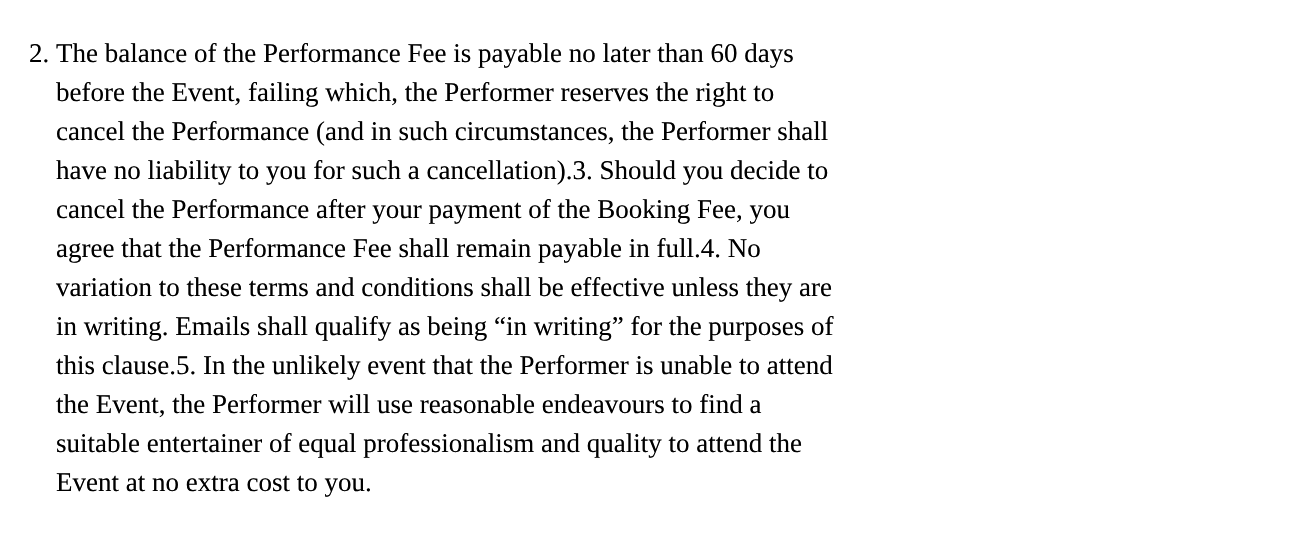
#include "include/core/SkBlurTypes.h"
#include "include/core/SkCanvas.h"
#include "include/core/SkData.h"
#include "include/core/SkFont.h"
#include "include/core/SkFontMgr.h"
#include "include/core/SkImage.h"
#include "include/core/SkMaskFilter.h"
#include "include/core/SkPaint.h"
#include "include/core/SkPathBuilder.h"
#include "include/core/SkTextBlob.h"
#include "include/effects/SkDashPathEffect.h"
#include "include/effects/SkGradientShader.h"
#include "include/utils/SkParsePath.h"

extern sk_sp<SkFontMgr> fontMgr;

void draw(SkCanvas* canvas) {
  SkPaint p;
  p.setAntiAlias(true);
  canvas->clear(SK_ColorWHITE);
  SkFont font1(fontMgr->matchFamilyStyle("Liberation Serif", SkFontStyle::Normal()), 27);
  font1.setSubpixel(true);
  p.setColor(SK_ColorBLACK);
  canvas->drawString("2. The balance of the Performance Fee is payable no later than 60 days", 29, 62, font1, p);
  canvas->drawString("before the Event, failing which, the Performer reserves the right to", 56, 101, font1, p);
  canvas->drawString("cancel the Performance (and in such circumstances, the Performer shall", 56, 140, font1, p);
  canvas->drawString("have no liability to you for such a cancellation).3. Should you decide to", 56, 179, font1, p);
  canvas->drawString("cancel the Performance after your payment of the Booking Fee, you", 56, 218, font1, p);
  canvas->drawString("agree that the Performance Fee shall remain payable in full.4. No", 56, 257, font1, p);
  canvas->drawString("variation to these terms and conditions shall be effective unless they are", 56, 296, font1, p);
  canvas->drawString("in writing. Emails shall qualify as being “in writing” for the purposes of", 56, 335, font1, p);
  canvas->drawString("this clause.5. In the unlikely event that the Performer is unable to attend", 56, 374, font1, p);
  canvas->drawString("the Event, the Performer will use reasonable endeavours to find a", 56, 413, font1, p);
  canvas->drawString("suitable entertainer of equal professionalism and quality to attend the", 56, 452, font1, p);
  canvas->drawString("Event at no extra cost to you.", 56, 491, font1, p);
}
